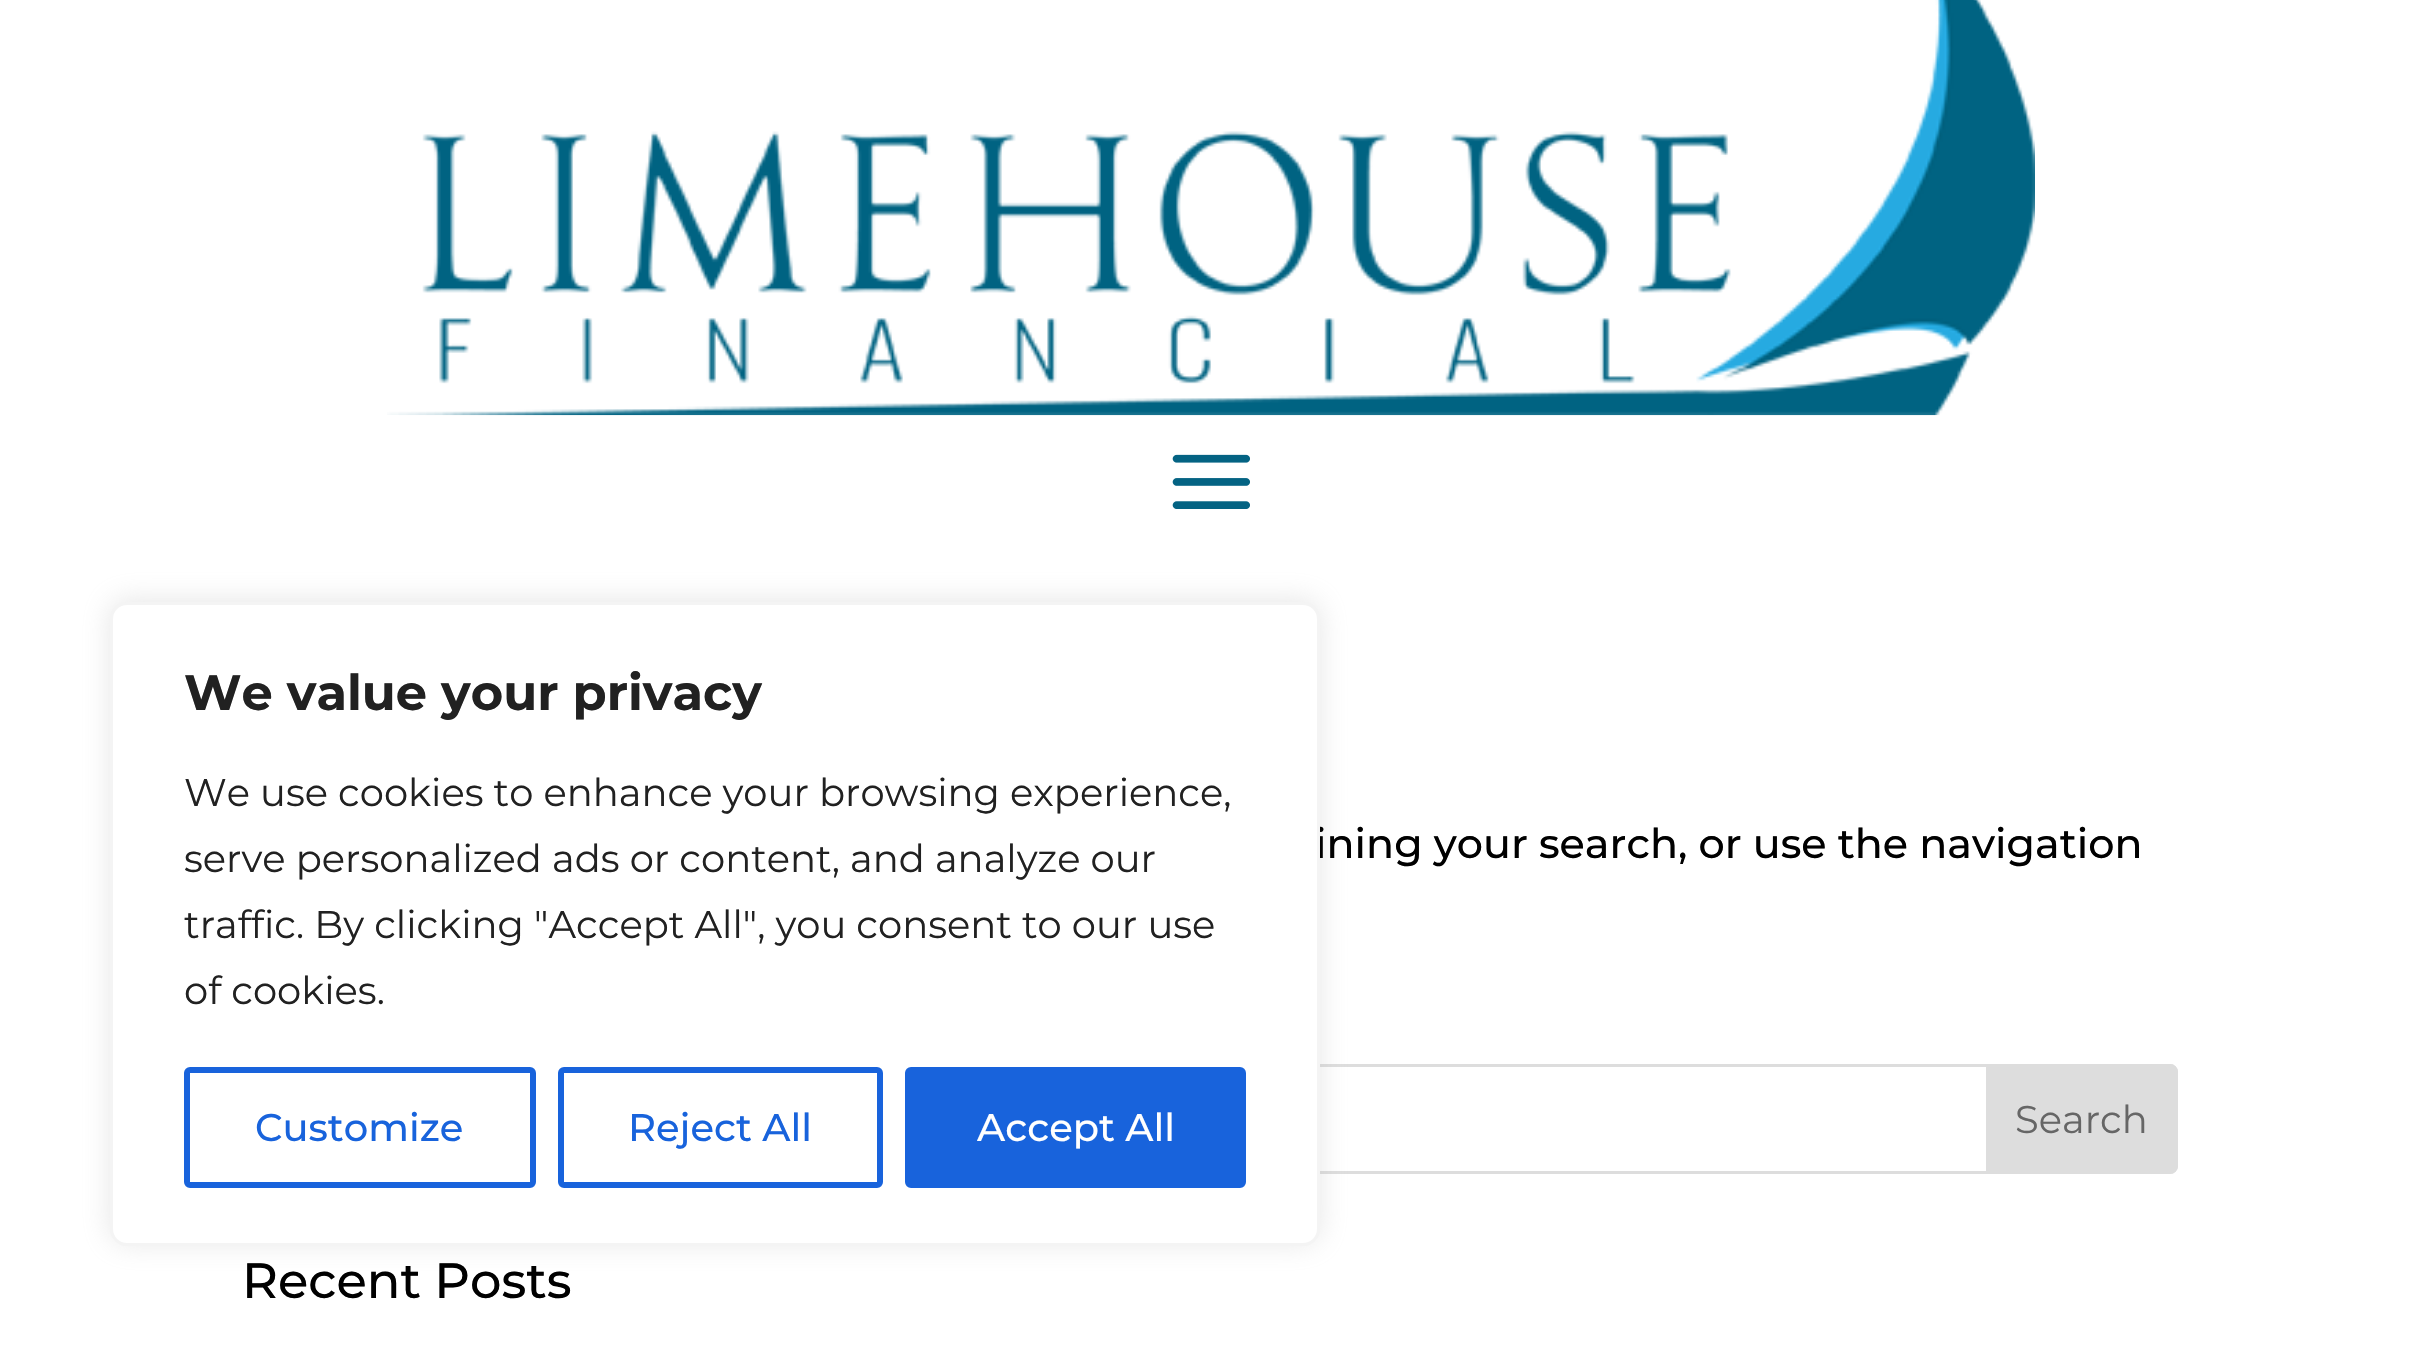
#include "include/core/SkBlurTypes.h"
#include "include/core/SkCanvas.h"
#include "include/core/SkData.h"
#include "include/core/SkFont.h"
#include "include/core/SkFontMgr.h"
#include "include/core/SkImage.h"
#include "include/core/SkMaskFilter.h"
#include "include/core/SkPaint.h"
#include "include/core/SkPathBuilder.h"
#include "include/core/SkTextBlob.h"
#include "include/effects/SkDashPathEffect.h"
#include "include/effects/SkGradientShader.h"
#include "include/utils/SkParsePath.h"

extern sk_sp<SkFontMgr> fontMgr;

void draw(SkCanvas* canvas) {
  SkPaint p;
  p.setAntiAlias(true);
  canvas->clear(SK_ColorWHITE);
  p.setStyle(SkPaint::kStroke_Style);
  p.setStrokeWidth(3);
  p.setColor(SkColorSetRGB(221, 221, 221));
  canvas->drawRoundRect(SkRect::MakeLTRB(243.5f, 1065.5f, 2176.5f, 1172.5f), 6.5f, 6.5f, p);
  p.setStyle(SkPaint::kFill_Style);
  p.setColor(SkColorSetARGB(77, 172, 171, 171));
  p.setMaskFilter(SkMaskFilter::MakeBlur(kNormal_SkBlurStyle, 14));
  canvas->drawRoundRect(SkRect::MakeLTRB(110, 600, 1320, 1243), 17, 17, p);
  p.setMaskFilter(nullptr);
  canvas->drawImageRect(SkImages::DeferredFromEncodedData(SkData::MakeFromFileName("images/1.png")), SkRect::MakeLTRB(387, 0, 2035, 416), SkSamplingOptions());
  canvas->drawImageRect(SkImages::DeferredFromEncodedData(SkData::MakeFromFileName("images/2.png")), SkRect::MakeLTRB(1172, 454, 1250, 509), SkSamplingOptions());
  p.setColor(SkColorSetRGB(221, 221, 221));
  canvas->drawPath(SkPathBuilder().moveTo(1987.5f, 1065.5f).lineTo(2170, 1065.5f).cubicTo(2173.5f, 1065.5f, 2176.5f, 1068.5f, 2176.5f, 1072).lineTo(2176.5f, 1166).cubicTo(2176.5f, 1169.5f, 2173.5f, 1172.5f, 2170, 1172.5f).lineTo(1987.5f, 1172.5f).close().detach(), p);
  p.setStyle(SkPaint::kStroke_Style);
  canvas->drawPath(SkPathBuilder().moveTo(1987.5f, 1065.5f).lineTo(2170, 1065.5f).cubicTo(2173.5f, 1065.5f, 2176.5f, 1068.5f, 2176.5f, 1072).lineTo(2176.5f, 1166).cubicTo(2176.5f, 1169.5f, 2173.5f, 1172.5f, 2170, 1172.5f).lineTo(1987.5f, 1172.5f).close().detach(), p);
  SkFont font1(fontMgr->matchFamilyStyle("Montserrat", SkFontStyle(500, SkFontStyle::kNormal_Width, SkFontStyle::kUpright_Slant)), 41.25f);
  font1.setSubpixel(true);
  p.setStyle(SkPaint::kFill_Style);
  p.setColor(SK_ColorBLACK);
  canvas->drawString("ining your search, or use the navigation", 1315, 858, font1, p);
  p.setColor(SK_ColorWHITE);
  canvas->drawRoundRect(SkRect::MakeLTRB(111.5f, 603.5f, 1318.5f, 1244.5f), 15.5f, 15.5f, p);
  p.setStyle(SkPaint::kStroke_Style);
  p.setColor(SkColorSetRGB(244, 244, 244));
  canvas->drawRoundRect(SkRect::MakeLTRB(111.5f, 603.5f, 1318.5f, 1244.5f), 15.5f, 15.5f, p);
  p.setStyle(SkPaint::kFill_Style);
  p.setColor(SkColorSetRGB(24, 99, 220));
  canvas->drawRoundRect(SkRect::MakeLTRB(908, 1070, 1243, 1185), 3, 3, p);
  p.setStyle(SkPaint::kStroke_Style);
  p.setStrokeWidth(6);
  canvas->drawRoundRect(SkRect::MakeLTRB(908, 1070, 1243, 1185), 3, 3, p);
  SkFont font2(fontMgr->matchFamilyStyle("Montserrat", SkFontStyle(500, SkFontStyle::kNormal_Width, SkFontStyle::kUpright_Slant)), 38.5f);
  font2.setSubpixel(true);
  p.setStyle(SkPaint::kFill_Style);
  p.setColor(SK_ColorWHITE);
  canvas->drawString("Accept All", 977, 1141, font2, p);
  p.setStyle(SkPaint::kStroke_Style);
  p.setColor(SkColorSetRGB(24, 99, 220));
  canvas->drawRoundRect(SkRect::MakeLTRB(561, 1070, 880, 1185), 3, 3, p);
  p.setStyle(SkPaint::kFill_Style);
  canvas->drawString("Reject All", 628, 1141, font2, p);
  p.setStyle(SkPaint::kStroke_Style);
  canvas->drawRoundRect(SkRect::MakeLTRB(187, 1070, 533, 1185), 3, 3, p);
  p.setStyle(SkPaint::kFill_Style);
  canvas->drawString("Customize", 255, 1141, font2, p);
  SkFont font3(fontMgr->matchFamilyStyle("Montserrat", SkFontStyle::Normal()), 38.5f);
  font3.setSubpixel(true);
  p.setColor(SkColorSetRGB(33, 33, 33));
  canvas->drawString("of cookies.", 184, 1004, font3, p);
  canvas->drawString("traffic. By clicking \"Accept All\", you consent to our use", 184, 938, font3, p);
  canvas->drawString("serve personalized ads or content, and analyze our", 184, 872, font3, p);
  canvas->drawString("We use cookies to enhance your browsing experience,", 184, 806, font3, p);
  SkFont font4(fontMgr->matchFamilyStyle("Montserrat", SkFontStyle::Bold()), 49.5f);
  font4.setSubpixel(true);
  canvas->drawString("We value your privacy", 184, 710, font4, p);
  p.setColor(SkColorSetRGB(102, 102, 102));
  canvas->drawString("Search", 2015, 1133, font3, p);
  SkFont font5(fontMgr->matchFamilyStyle("Montserrat", SkFontStyle(500, SkFontStyle::kNormal_Width, SkFontStyle::kUpright_Slant)), 49.5f);
  font5.setSubpixel(true);
  p.setColor(SK_ColorBLACK);
  canvas->drawString("Recent Posts", 242, 1298, font5, p);
}
